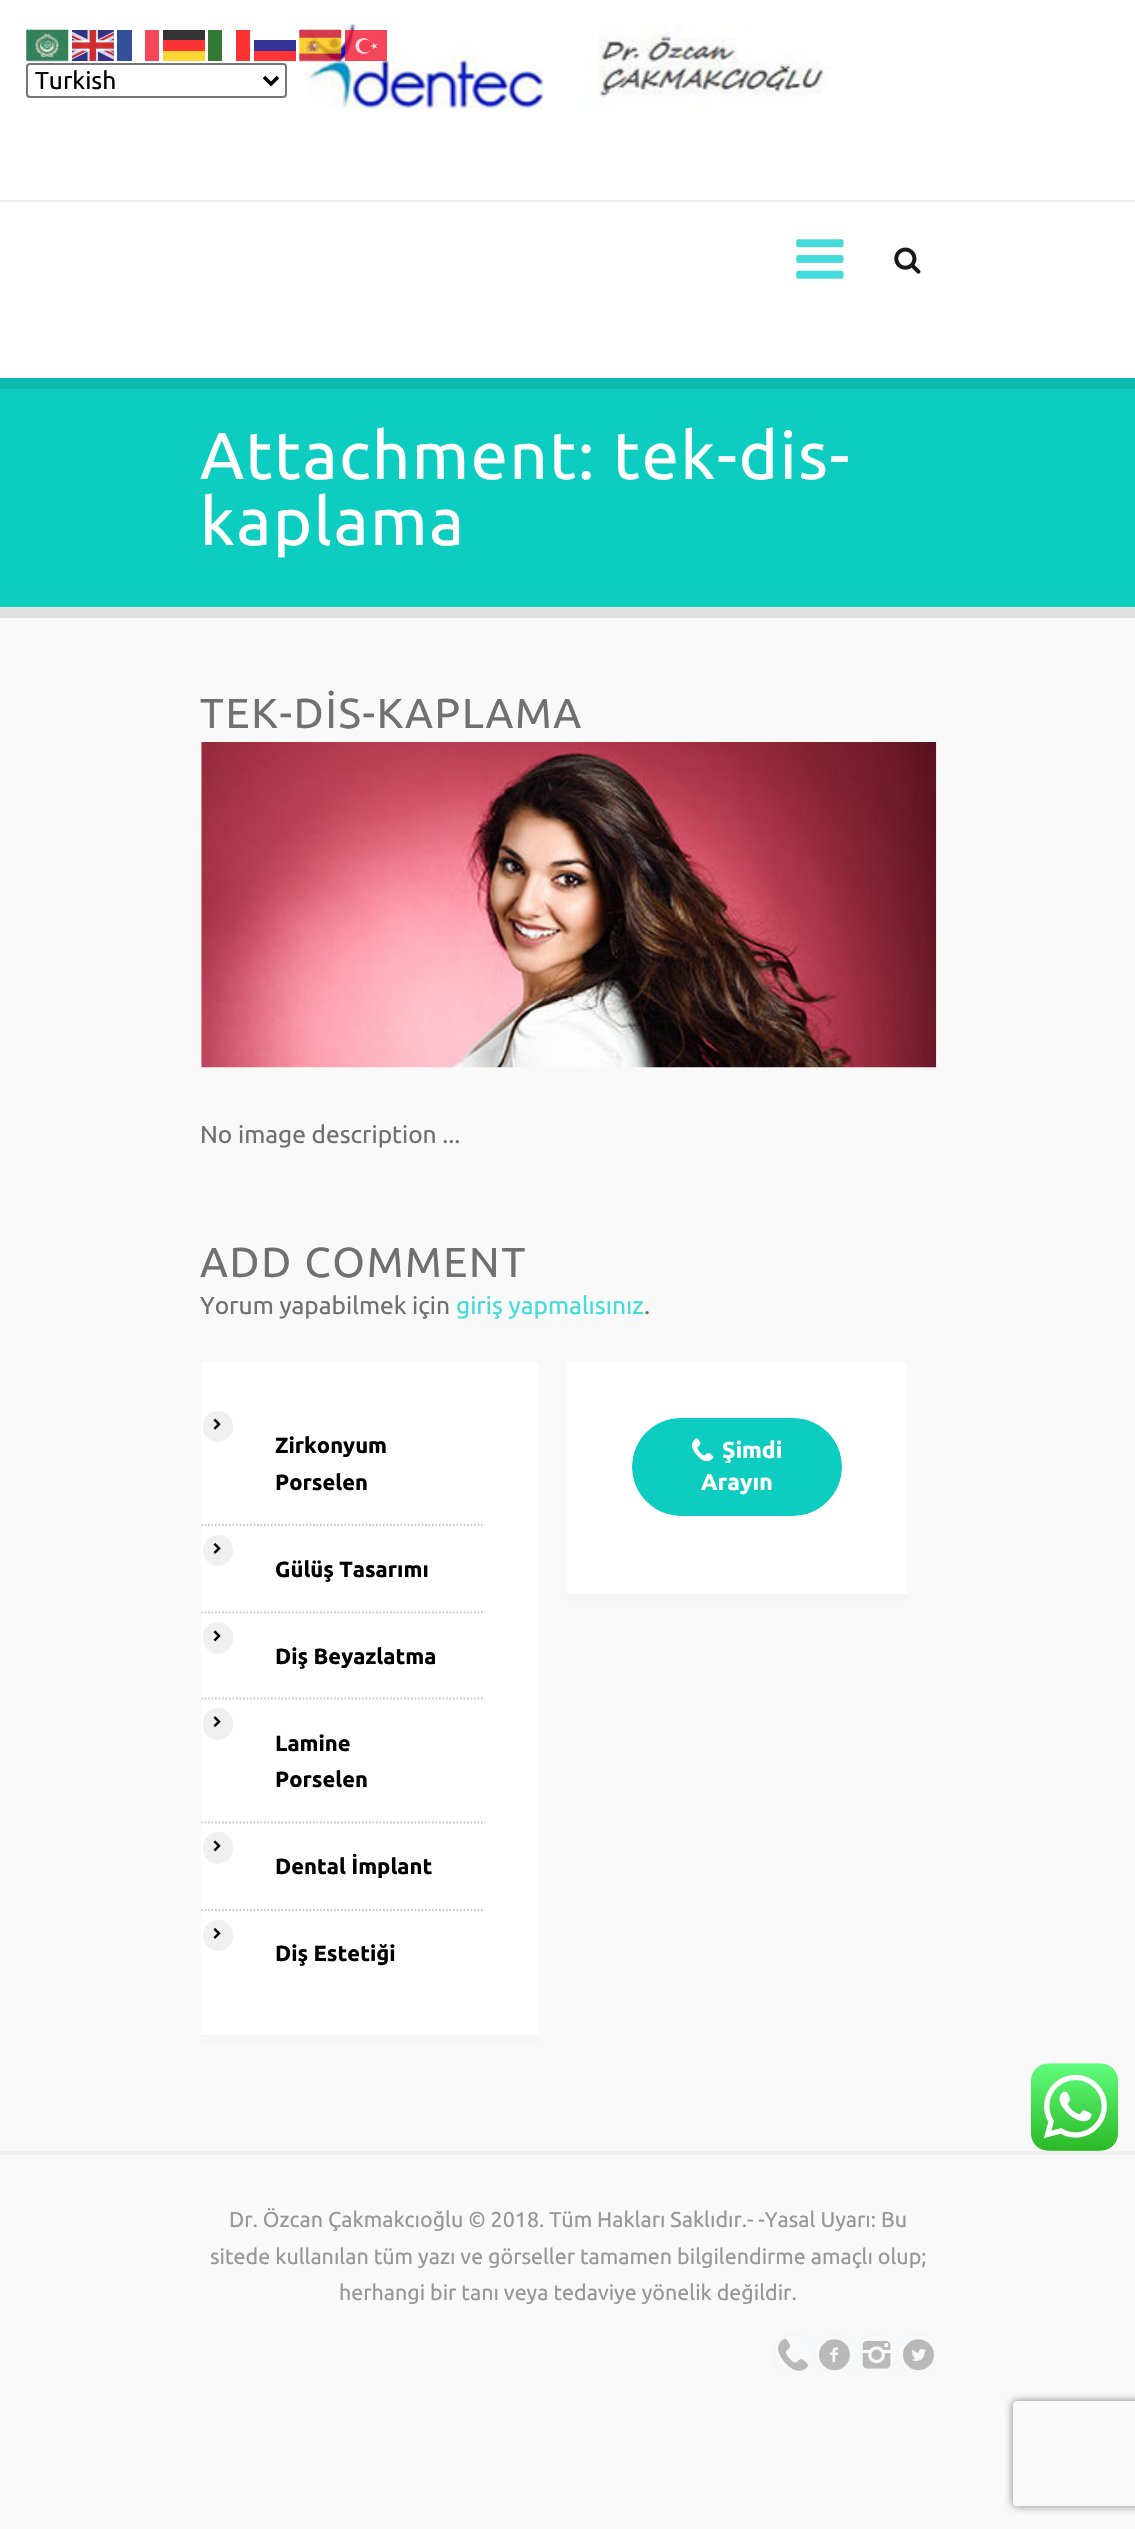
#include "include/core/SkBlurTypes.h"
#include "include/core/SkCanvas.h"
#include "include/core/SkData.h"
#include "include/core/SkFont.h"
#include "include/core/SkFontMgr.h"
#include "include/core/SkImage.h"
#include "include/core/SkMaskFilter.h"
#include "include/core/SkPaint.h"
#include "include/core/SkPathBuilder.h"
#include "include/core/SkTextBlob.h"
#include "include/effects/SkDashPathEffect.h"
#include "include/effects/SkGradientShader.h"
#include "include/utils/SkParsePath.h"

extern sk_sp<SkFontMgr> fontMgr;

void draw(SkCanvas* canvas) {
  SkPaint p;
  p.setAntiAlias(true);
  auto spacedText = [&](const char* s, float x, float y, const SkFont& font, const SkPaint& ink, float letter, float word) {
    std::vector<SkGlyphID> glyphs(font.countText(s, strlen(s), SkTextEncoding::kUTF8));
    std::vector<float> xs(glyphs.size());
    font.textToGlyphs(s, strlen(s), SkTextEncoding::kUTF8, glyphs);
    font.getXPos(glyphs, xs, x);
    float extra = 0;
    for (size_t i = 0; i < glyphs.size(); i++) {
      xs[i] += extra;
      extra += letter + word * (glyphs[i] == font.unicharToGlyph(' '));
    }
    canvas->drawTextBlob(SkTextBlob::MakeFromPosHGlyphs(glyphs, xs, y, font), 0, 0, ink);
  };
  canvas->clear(SkColorSetRGB(249, 249, 249));
  p.setColor(SK_ColorWHITE);
  canvas->drawRect(SkRect::MakeLTRB(0, 0, 1135, 378), p);
  canvas->drawImageRect(SkImages::DeferredFromEncodedData(SkData::MakeFromFileName("images/1.png")), SkRect::MakeLTRB(26, 29, 69, 62), SkSamplingOptions());
  canvas->drawImageRect(SkImages::DeferredFromEncodedData(SkData::MakeFromFileName("images/2.png")), SkRect::MakeLTRB(72, 30, 114, 61), SkSamplingOptions());
  p.setColor(SkColorSetRGB(51, 81, 153));
  canvas->drawRect(SkRect::MakeLTRB(117, 30, 132, 61), p);
  p.setColor(SkColorSetRGB(245, 70, 89));
  canvas->drawRect(SkRect::MakeLTRB(145, 30, 159, 61), p);
  p.setColor(SkColorSetRGB(51, 51, 51));
  canvas->drawRect(SkRect::MakeLTRB(163, 30, 205, 40), p);
  p.setColor(SkColorSetRGB(51, 121, 51));
  canvas->drawRect(SkRect::MakeLTRB(208, 30, 222, 61), p);
  p.setColor(SkColorSetRGB(253, 51, 51));
  canvas->drawRect(SkRect::MakeLTRB(236, 30, 250, 61), p);
  canvas->drawImageRect(SkImages::DeferredFromEncodedData(SkData::MakeFromFileName("images/5.png")), SkRect::MakeLTRB(306, 24, 831, 109), SkSamplingOptions());
  canvas->drawImageRect(SkImages::DeferredFromEncodedData(SkData::MakeFromFileName("images/3.png")), SkRect::MakeLTRB(299, 29, 342, 62), SkSamplingOptions());
  canvas->drawImageRect(SkImages::DeferredFromEncodedData(SkData::MakeFromFileName("images/4.png")), SkRect::MakeLTRB(345, 30, 387, 61), SkSamplingOptions());
  p.setColor(SkColorSetRGB(255, 51, 51));
  canvas->drawRect(SkRect::MakeLTRB(163, 40, 205, 51), p);
  p.setColor(SkColorSetRGB(52, 52, 152));
  canvas->drawRect(SkRect::MakeLTRB(254, 40, 296, 51), p);
  p.setColor(SkColorSetRGB(255, 214, 51));
  canvas->drawRect(SkRect::MakeLTRB(163, 51, 205, 61), p);
  p.setColor(SkColorSetRGB(254, 52, 52));
  canvas->drawRect(SkRect::MakeLTRB(254, 51, 296, 61), p);
  p.setStyle(SkPaint::kStroke_Style);
  p.setStrokeWidth(2);
  p.setColor(SkColorSetRGB(118, 118, 118));
  canvas->drawRoundRect(SkRect::MakeLTRB(27, 64, 286, 97), 3, 3, p);
  p.setStrokeWidth(3.5f);
  p.setColor(SK_ColorBLACK);
  canvas->drawPath(SkPathBuilder().moveTo(264, 77).lineTo(271, 84).lineTo(278, 77).detach(), p);
  p.setStyle(SkPaint::kFill_Style);
  p.setColor(SkColorSetRGB(238, 238, 238));
  canvas->drawRect(SkRect::MakeLTRB(0, 200, 1135, 202), p);
  canvas->drawImageRect(SkImages::DeferredFromEncodedData(SkData::MakeFromFileName("images/6.png")), SkRect::MakeLTRB(796, 239, 844, 279), SkSamplingOptions());
  canvas->drawImageRect(SkImages::DeferredFromEncodedData(SkData::MakeFromFileName("images/7.png")), SkRect::MakeLTRB(894, 247, 921, 274), SkSamplingOptions());
  p.setColor(SkColorSetRGB(224, 224, 224));
  canvas->drawPath(SkPathBuilder().moveTo(0, 607).lineTo(0, 618).lineTo(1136, 618).lineTo(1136, 389).lineTo(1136, 607).close().detach(), p);
  p.setColor(SkColorSetRGB(13, 205, 192));
  canvas->drawRect(SkRect::MakeLTRB(0, 389, 1135, 607), p);
  p.setColor(SkColorSetRGB(12, 185, 173));
  canvas->drawRect(SkRect::MakeLTRB(0, 378, 1135, 389), p);
  canvas->drawImageRect(SkImages::DeferredFromEncodedData(SkData::MakeFromFileName("images/8.png")), SkRect::MakeLTRB(201, 742, 937, 1068), SkSamplingOptions());
  p.setColor(SK_ColorWHITE);
  canvas->drawRect(SkRect::MakeLTRB(201, 1363, 539, 2035), p);
  p.setColor(SkColorSetRGB(246, 246, 246));
  canvas->drawRect(SkRect::MakeLTRB(201, 2035, 539, 2042), p);
  p.setStyle(SkPaint::kStroke_Style);
  p.setStrokeWidth(1.8f);
  p.setColor(SkColorSetRGB(203, 203, 203));
  p.setPathEffect(SkDashPathEffect::Make({{1.75f, 1.75f}}, 0));
  canvas->drawPath(SkPathBuilder().moveTo(201, 1525).lineTo(485, 1525).detach(), p);
  p.setPathEffect(nullptr);
  p.setStyle(SkPaint::kFill_Style);
  p.setColor(SkColorSetRGB(240, 240, 240));
  canvas->drawRoundRect(SkRect::MakeLTRB(204, 1412, 232, 1441), 14, 14, p);
  p.setStyle(SkPaint::kStroke_Style);
  p.setStrokeWidth(2);
  canvas->drawRoundRect(SkRect::MakeLTRB(204, 1412, 232, 1441), 14, 14, p);
  canvas->drawImageRect(SkImages::DeferredFromEncodedData(SkData::MakeFromFileName("images/9.png")), SkRect::MakeLTRB(213, 1418, 221, 1430), SkSamplingOptions());
  p.setStrokeWidth(1.8f);
  p.setColor(SkColorSetRGB(203, 203, 203));
  p.setPathEffect(SkDashPathEffect::Make({{1.75f, 1.75f}}, 0));
  canvas->drawPath(SkPathBuilder().moveTo(201, 1612.5f).lineTo(485, 1612.5f).detach(), p);
  p.setPathEffect(nullptr);
  p.setStyle(SkPaint::kFill_Style);
  p.setColor(SkColorSetRGB(240, 240, 240));
  canvas->drawRoundRect(SkRect::MakeLTRB(204, 1536, 232, 1565), 14, 14, p);
  p.setStyle(SkPaint::kStroke_Style);
  p.setStrokeWidth(2);
  canvas->drawRoundRect(SkRect::MakeLTRB(204, 1536, 232, 1565), 14, 14, p);
  canvas->drawImageRect(SkImages::DeferredFromEncodedData(SkData::MakeFromFileName("images/10.png")), SkRect::MakeLTRB(213, 1543, 221, 1554), SkSamplingOptions());
  p.setStrokeWidth(1.8f);
  p.setColor(SkColorSetRGB(203, 203, 203));
  p.setPathEffect(SkDashPathEffect::Make({{1.75f, 1.75f}}, 0));
  canvas->drawPath(SkPathBuilder().moveTo(201, 1698.5f).lineTo(485, 1698.5f).detach(), p);
  p.setPathEffect(nullptr);
  p.setStyle(SkPaint::kFill_Style);
  p.setColor(SkColorSetRGB(240, 240, 240));
  canvas->drawRoundRect(SkRect::MakeLTRB(204, 1623, 232, 1653), 14, 14, p);
  p.setStyle(SkPaint::kStroke_Style);
  p.setStrokeWidth(2);
  canvas->drawRoundRect(SkRect::MakeLTRB(204, 1623, 232, 1653), 14, 14, p);
  canvas->drawImageRect(SkImages::DeferredFromEncodedData(SkData::MakeFromFileName("images/11.png")), SkRect::MakeLTRB(213, 1630, 221, 1642), SkSamplingOptions());
  p.setStrokeWidth(1.8f);
  p.setColor(SkColorSetRGB(203, 203, 203));
  p.setPathEffect(SkDashPathEffect::Make({{1.75f, 1.75f}}, 0));
  canvas->drawPath(SkPathBuilder().moveTo(201, 1822.5f).lineTo(485, 1822.5f).detach(), p);
  p.setPathEffect(nullptr);
  p.setStyle(SkPaint::kFill_Style);
  p.setColor(SkColorSetRGB(240, 240, 240));
  canvas->drawRoundRect(SkRect::MakeLTRB(204, 1709, 232, 1739), 14, 14, p);
  p.setStyle(SkPaint::kStroke_Style);
  p.setStrokeWidth(2);
  canvas->drawRoundRect(SkRect::MakeLTRB(204, 1709, 232, 1739), 14, 14, p);
  canvas->drawImageRect(SkImages::DeferredFromEncodedData(SkData::MakeFromFileName("images/12.png")), SkRect::MakeLTRB(213, 1716, 221, 1728), SkSamplingOptions());
  p.setStrokeWidth(1.8f);
  p.setColor(SkColorSetRGB(203, 203, 203));
  p.setPathEffect(SkDashPathEffect::Make({{1.75f, 1.75f}}, 0));
  canvas->drawPath(SkPathBuilder().moveTo(201, 1910).lineTo(485, 1910).detach(), p);
  p.setPathEffect(nullptr);
  p.setStyle(SkPaint::kFill_Style);
  p.setColor(SkColorSetRGB(240, 240, 240));
  canvas->drawRoundRect(SkRect::MakeLTRB(204, 1833, 232, 1863), 14, 14, p);
  p.setStyle(SkPaint::kStroke_Style);
  p.setStrokeWidth(2);
  canvas->drawRoundRect(SkRect::MakeLTRB(204, 1833, 232, 1863), 14, 14, p);
  canvas->drawImageRect(SkImages::DeferredFromEncodedData(SkData::MakeFromFileName("images/11.png")), SkRect::MakeLTRB(213, 1840, 221, 1852), SkSamplingOptions());
  p.setStyle(SkPaint::kFill_Style);
  canvas->drawRoundRect(SkRect::MakeLTRB(204, 1921, 232, 1950), 14, 14, p);
  p.setStyle(SkPaint::kStroke_Style);
  canvas->drawRoundRect(SkRect::MakeLTRB(204, 1921, 232, 1950), 14, 14, p);
  canvas->drawImageRect(SkImages::DeferredFromEncodedData(SkData::MakeFromFileName("images/10.png")), SkRect::MakeLTRB(213, 1928, 221, 1939), SkSamplingOptions());
  p.setStyle(SkPaint::kFill_Style);
  p.setColor(SK_ColorWHITE);
  canvas->drawRect(SkRect::MakeLTRB(567, 1363, 907, 1594), p);
  p.setColor(SkColorSetRGB(246, 246, 246));
  canvas->drawRect(SkRect::MakeLTRB(567, 1594, 907, 1601), p);
  p.setColor(SkColorSetRGB(13, 205, 192));
  canvas->drawRoundRect(SkRect::MakeLTRB(632, 1418, 842, 1516), 49, 49, p);
  p.setStyle(SkPaint::kStroke_Style);
  p.setStrokeWidth(5);
  p.setColor(SK_ColorWHITE);
  canvas->drawRoundRect(SkRect::MakeLTRB(629.5f, 1414.5f, 844.5f, 1518.5f), 52, 52, p);
  canvas->drawImageRect(SkImages::DeferredFromEncodedData(SkData::MakeFromFileName("images/13.png")), SkRect::MakeLTRB(692, 1438, 714, 1462), SkSamplingOptions());
  p.setStyle(SkPaint::kFill_Style);
  p.setColor(SkColorSetRGB(238, 238, 238));
  canvas->drawRect(SkRect::MakeLTRB(0, 2151, 1135, 2155), p);
  canvas->save();
  canvas->clipRect(SkRect::MakeLTRB(768, 2333, 936, 2371));
  p.setStyle(SkPaint::kStroke_Style);
  p.setStrokeWidth(2);
  p.setColor(SkColorSetRGB(244, 247, 249));
  canvas->drawCircle(793, 2354, 20, p);
  canvas->restore();
  canvas->drawImageRect(SkImages::DeferredFromEncodedData(SkData::MakeFromFileName("images/14.png")), SkRect::MakeLTRB(778, 2338, 808, 2371), SkSamplingOptions());
  canvas->save();
  canvas->clipRect(SkRect::MakeLTRB(768, 2333, 936, 2371));
  canvas->drawCircle(835, 2354, 20, p);
  canvas->restore();
  canvas->drawImageRect(SkImages::DeferredFromEncodedData(SkData::MakeFromFileName("images/15.png")), SkRect::MakeLTRB(819, 2339, 850, 2371), SkSamplingOptions());
  canvas->save();
  canvas->clipRect(SkRect::MakeLTRB(768, 2333, 936, 2371));
  canvas->drawCircle(877, 2354, 20, p);
  canvas->restore();
  canvas->drawImageRect(SkImages::DeferredFromEncodedData(SkData::MakeFromFileName("images/16.png")), SkRect::MakeLTRB(862, 2340, 891, 2369), SkSamplingOptions());
  canvas->save();
  canvas->clipRect(SkRect::MakeLTRB(768, 2333, 936, 2371));
  canvas->drawRoundRect(SkRect::MakeLTRB(897, 2334, 939, 2374), 20, 20, p);
  canvas->restore();
  canvas->drawImageRect(SkImages::DeferredFromEncodedData(SkData::MakeFromFileName("images/17.png")), SkRect::MakeLTRB(903, 2339, 934, 2371), SkSamplingOptions());
  canvas->drawImageRect(SkImages::DeferredFromEncodedData(SkData::MakeFromFileName("images/18.png")), SkRect::MakeLTRB(1031, 2063, 1118, 2151), SkSamplingOptions());
  canvas->save();
  canvas->clipPath(SkPathBuilder(SkPathFillType::kEvenOdd).moveTo(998, 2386).lineTo(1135, 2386).lineTo(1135, 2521).lineTo(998, 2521).close().moveTo(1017, 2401).lineTo(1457, 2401).cubicTo(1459, 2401, 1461, 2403, 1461, 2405).lineTo(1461, 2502).cubicTo(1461, 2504, 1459, 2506, 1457, 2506).lineTo(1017, 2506).cubicTo(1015, 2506, 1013, 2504, 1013, 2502).lineTo(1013, 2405).cubicTo(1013, 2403, 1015, 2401, 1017, 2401).close().detach(), true);
  p.setStyle(SkPaint::kFill_Style);
  p.setColor(SkColorSetRGB(128, 128, 128));
  p.setMaskFilter(SkMaskFilter::MakeBlur(kNormal_SkBlurStyle, 4.5f));
  canvas->drawRoundRect(SkRect::MakeLTRB(1013, 2401, 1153, 2506), 4, 4, p);
  p.setMaskFilter(nullptr);
  canvas->restore();
  SkFont font1(fontMgr->matchFamilyStyle("Ubuntu", SkFontStyle::Normal()), 24.5f);
  font1.setSubpixel(true);
  p.setColor(SK_ColorBLACK);
  canvas->drawString("Turkish", 35, 89, font1, p);
  SkFont font2(fontMgr->matchFamilyStyle("Ubuntu", SkFontStyle::Normal()), 66.5f);
  font2.setSubpixel(true);
  p.setColor(SK_ColorWHITE);
  spacedText("Attachment: tek-dis-", 200, 479, font2, p, 1.75f, 0);
  spacedText("kaplama", 200, 545, font2, p, 1.75f, 0);
  SkFont font3(fontMgr->matchFamilyStyle("Ubuntu", SkFontStyle::Normal()), 42);
  font3.setSubpixel(true);
  p.setColor(SkColorSetRGB(112, 112, 112));
  spacedText("TEK-DİS-KAPLAMA", 200, 728, font3, p, 1.75f, 0);
  canvas->drawString("No image description ...", 200, 1143, font1, p);
  spacedText("ADD COMMENT", 200, 1277, font3, p, 1.75f, 0);
  canvas->drawString("Yorum yapabilmek için", 200, 1314, font1, p);
  p.setColor(SkColorSetRGB(67, 219, 219));
  canvas->drawString("giriş yapmalısınız", 456, 1314, font1, p);
  p.setColor(SkColorSetRGB(112, 112, 112));
  canvas->drawString(".", 644, 1314, font1, p);
  SkFont font4(fontMgr->matchFamilyStyle("Ubuntu", SkFontStyle::Bold()), 22);
  font4.setSubpixel(true);
  p.setColor(SK_ColorBLACK);
  canvas->drawString("Zirkonyum", 275, 1453, font4, p);
  canvas->drawString("Porselen", 275, 1490, font4, p);
  canvas->drawString("Gülüş Tasarımı", 275, 1577, font4, p);
  canvas->drawString("Diş Beyazlatma", 275, 1664, font4, p);
  canvas->drawString("Lamine", 275, 1751, font4, p);
  canvas->drawString("Porselen", 275, 1787, font4, p);
  canvas->drawString("Dental İmplant", 275, 1874, font4, p);
  canvas->drawString("Diş Estetiği", 275, 1961, font4, p);
  SkFont font5(fontMgr->matchFamilyStyle("Ubuntu", SkFontStyle::Bold()), 23);
  font5.setSubpixel(true);
  p.setColor(SK_ColorWHITE);
  canvas->drawString("Şimdi", 722, 1458, font5, p);
  canvas->drawString("Arayın", 701, 1490, font5, p);
  SkFont font6(fontMgr->matchFamilyStyle("Ubuntu", SkFontStyle::Normal()), 21.45f);
  font6.setSubpixel(true);
  p.setColor(SkColorSetRGB(151, 151, 151));
  canvas->drawString("Dr. Özcan Çakmakcıoğlu © 2018. Tüm Hakları Saklıdır.- -Yasal Uyarı: Bu", 229, 2227, font6, p);
  canvas->drawString("sitede kullanılan tüm yazı ve görseller tamamen bilgilendirme amaçlı olup;", 210, 2264, font6, p);
  canvas->drawString("herhangi bir tanı veya tedaviye yönelik değildir.", 339, 2300, font6, p);
}
